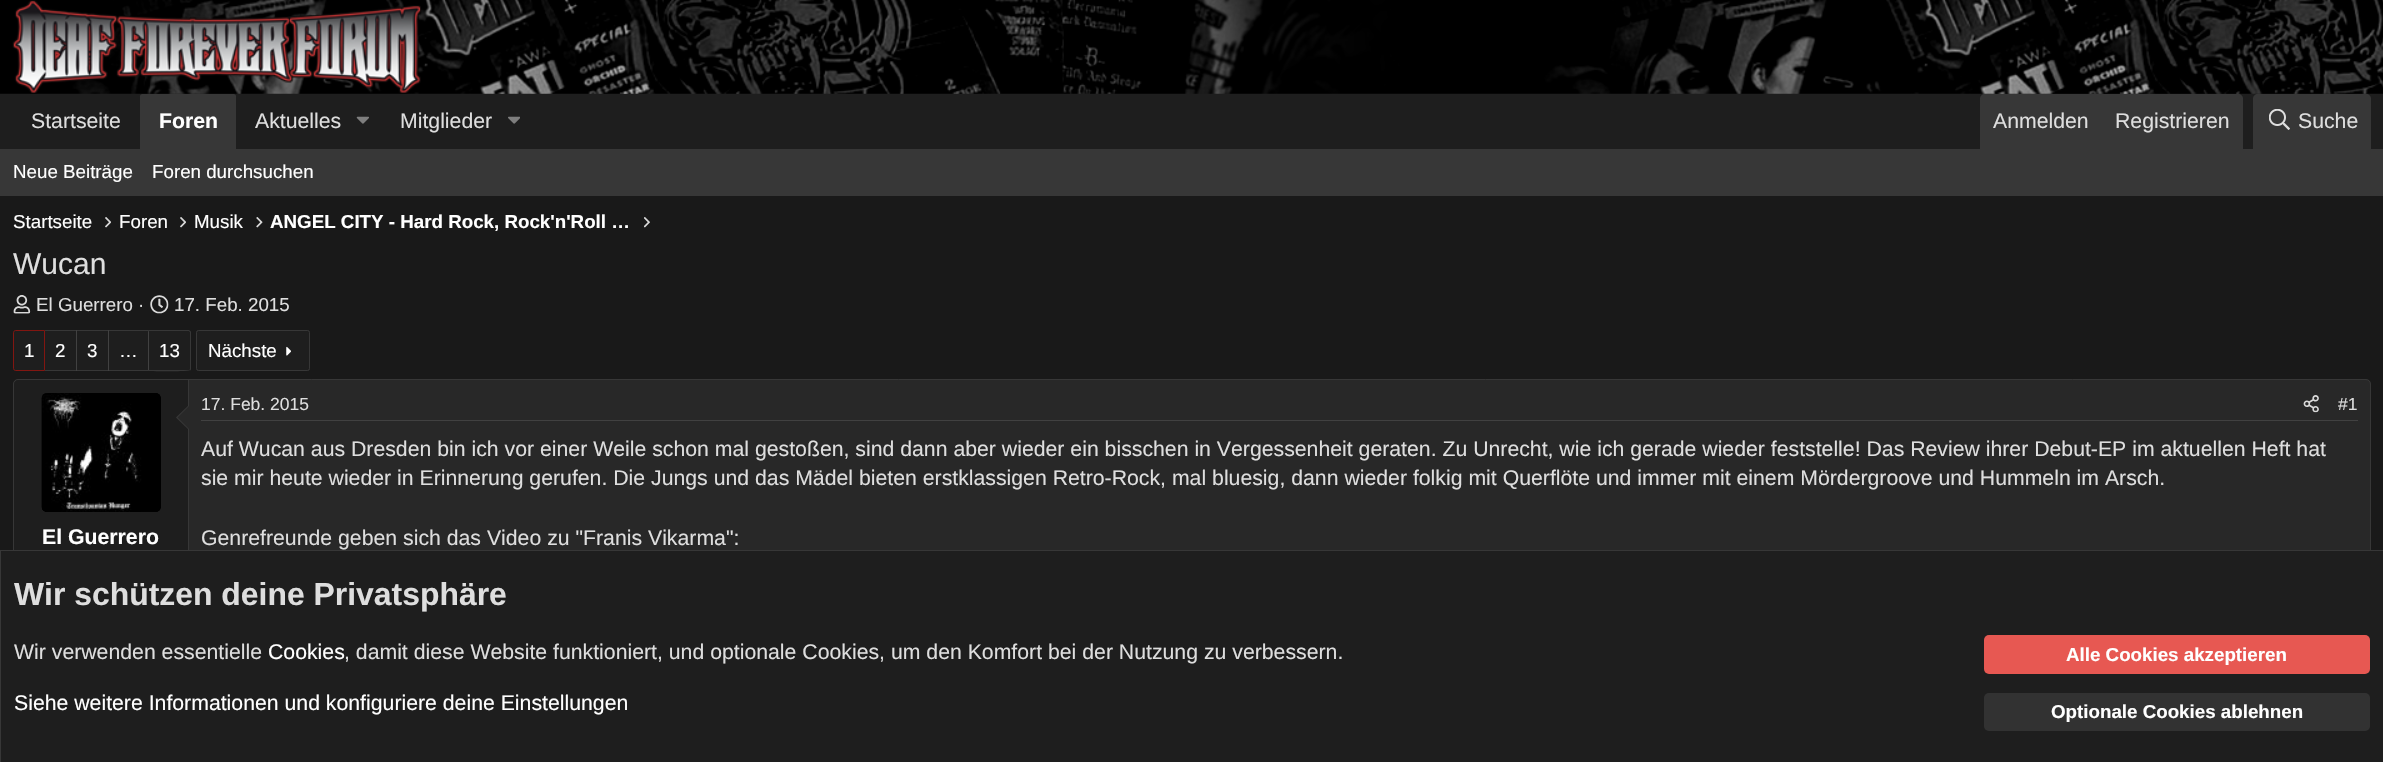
#include "include/core/SkBlurTypes.h"
#include "include/core/SkCanvas.h"
#include "include/core/SkData.h"
#include "include/core/SkFont.h"
#include "include/core/SkFontMgr.h"
#include "include/core/SkImage.h"
#include "include/core/SkMaskFilter.h"
#include "include/core/SkPaint.h"
#include "include/core/SkPathBuilder.h"
#include "include/core/SkTextBlob.h"
#include "include/effects/SkDashPathEffect.h"
#include "include/effects/SkGradientShader.h"
#include "include/utils/SkParsePath.h"

extern sk_sp<SkFontMgr> fontMgr;

void draw(SkCanvas* canvas) {
  SkPaint p;
  p.setAntiAlias(true);
  canvas->clear(SkColorSetRGB(25, 25, 25));
  canvas->drawImageRect(SkImages::DeferredFromEncodedData(SkData::MakeFromFileName("images/1.png")), SkRect::MakeLTRB(0, 0, 2383, 94), SkSamplingOptions());
  canvas->drawImageRect(SkImages::DeferredFromEncodedData(SkData::MakeFromFileName("images/2.png")), SkRect::MakeLTRB(12, 0, 421, 93), SkSamplingOptions());
  p.setColor(SkColorSetRGB(30, 30, 30));
  canvas->drawRect(SkRect::MakeLTRB(0, 94, 2383, 149), p);
  p.setColor(SkColorSetRGB(55, 55, 55));
  canvas->drawPath(SkPathBuilder().moveTo(142.5f, 94).lineTo(233.5f, 94).cubicTo(235, 94, 236, 95, 236, 96.5f).lineTo(236, 149).lineTo(140, 149).lineTo(140, 96.5f).cubicTo(140, 95, 141, 94, 142.5f, 94).close().detach(), p);
  canvas->drawImageRect(SkImages::DeferredFromEncodedData(SkData::MakeFromFileName("images/3.png")), SkRect::MakeLTRB(356, 116, 369, 124), SkSamplingOptions());
  canvas->drawImageRect(SkImages::DeferredFromEncodedData(SkData::MakeFromFileName("images/4.png")), SkRect::MakeLTRB(508, 116, 520, 124), SkSamplingOptions());
  canvas->drawPath(SkPathBuilder().moveTo(1985, 94).lineTo(2238, 94).cubicTo(2241, 94, 2243, 96, 2243, 99).lineTo(2243, 149).lineTo(1980, 149).lineTo(1980, 99).cubicTo(1980, 96, 1982, 94, 1985, 94).close().detach(), p);
  canvas->drawPath(SkPathBuilder().moveTo(2258, 94).lineTo(2366, 94).cubicTo(2369, 94, 2371, 96, 2371, 99).lineTo(2371, 149).lineTo(2253, 149).lineTo(2253, 99).cubicTo(2253, 96, 2255, 94, 2258, 94).close().detach(), p);
  canvas->drawImageRect(SkImages::DeferredFromEncodedData(SkData::MakeFromFileName("images/5.png")), SkRect::MakeLTRB(2269, 109, 2290, 130), SkSamplingOptions());
  canvas->drawRect(SkRect::MakeLTRB(0, 149, 2383, 196), p);
  canvas->drawImageRect(SkImages::DeferredFromEncodedData(SkData::MakeFromFileName("images/6.png")), SkRect::MakeLTRB(105, 217, 111, 228), SkSamplingOptions());
  canvas->drawImageRect(SkImages::DeferredFromEncodedData(SkData::MakeFromFileName("images/6.png")), SkRect::MakeLTRB(180, 217, 186, 228), SkSamplingOptions());
  canvas->drawImageRect(SkImages::DeferredFromEncodedData(SkData::MakeFromFileName("images/7.png")), SkRect::MakeLTRB(256, 217, 263, 228), SkSamplingOptions());
  canvas->drawImageRect(SkImages::DeferredFromEncodedData(SkData::MakeFromFileName("images/8.png")), SkRect::MakeLTRB(644, 217, 650, 228), SkSamplingOptions());
  canvas->drawImageRect(SkImages::DeferredFromEncodedData(SkData::MakeFromFileName("images/9.png")), SkRect::MakeLTRB(13, 295, 31, 314), SkSamplingOptions());
  canvas->drawImageRect(SkImages::DeferredFromEncodedData(SkData::MakeFromFileName("images/10.png")), SkRect::MakeLTRB(150, 295, 169, 314), SkSamplingOptions());
  p.setColor(SkColorSetRGB(30, 30, 30));
  canvas->drawPath(SkPathBuilder().moveTo(15.5f, 330.5f).lineTo(44.5f, 330.5f).lineTo(44.5f, 370.5f).lineTo(15.5f, 370.5f).cubicTo(14.5f, 370.5f, 13.5f, 369.5f, 13.5f, 368.5f).lineTo(13.5f, 332.5f).cubicTo(13.5f, 331.5f, 14.5f, 330.5f, 15.5f, 330.5f).close().detach(), p);
  p.setStyle(SkPaint::kStroke_Style);
  p.setStrokeWidth(1);
  p.setColor(SkColorSetRGB(130, 22, 17));
  canvas->drawPath(SkPathBuilder().moveTo(15.5f, 330.5f).lineTo(44.5f, 330.5f).lineTo(44.5f, 370.5f).lineTo(15.5f, 370.5f).cubicTo(14.5f, 370.5f, 13.5f, 369.5f, 13.5f, 368.5f).lineTo(13.5f, 332.5f).cubicTo(13.5f, 331.5f, 14.5f, 330.5f, 15.5f, 330.5f).close().detach(), p);
  p.setStyle(SkPaint::kFill_Style);
  p.setColor(SkColorSetRGB(30, 30, 30));
  canvas->drawRect(SkRect::MakeLTRB(45, 331, 76, 370), p);
  p.setColor(SkColorSetRGB(55, 55, 55));
  canvas->drawRect(SkRect::MakeLTRB(45, 330, 148, 331), p);
  canvas->drawRect(SkRect::MakeLTRB(45, 370, 148, 371), p);
  p.setColor(SkColorSetRGB(30, 30, 30));
  canvas->drawRect(SkRect::MakeLTRB(77, 331, 108, 370), p);
  p.setColor(SkColorSetRGB(65, 65, 65));
  canvas->drawRect(SkRect::MakeLTRB(76, 330, 77, 371), p);
  p.setColor(SkColorSetRGB(30, 30, 30));
  canvas->drawRect(SkRect::MakeLTRB(109, 331, 148, 370), p);
  p.setColor(SkColorSetRGB(65, 65, 65));
  canvas->drawRect(SkRect::MakeLTRB(108, 330, 109, 371), p);
  p.setColor(SkColorSetRGB(30, 30, 30));
  canvas->drawPath(SkPathBuilder().moveTo(148, 330).lineTo(188.5f, 330).cubicTo(190, 330, 191, 331, 191, 332.5f).lineTo(191, 368.5f).cubicTo(191, 370, 190, 371, 188.5f, 371).lineTo(148, 371).close().detach(), p);
  p.setColor(SkColorSetRGB(55, 55, 55));
  canvas->drawPath(SkPathBuilder().moveTo(148, 330).lineTo(149, 332).lineTo(149, 331).lineTo(189, 331).lineTo(190, 332).lineTo(190, 331).lineTo(189, 330).close().detach(), p);
  canvas->drawPath(SkPathBuilder().moveTo(190.5f, 331).lineTo(191, 332).lineTo(191, 369).lineTo(190.5f, 370.5f).lineTo(189.5f, 369.5f).lineTo(190, 369).lineTo(190, 332).lineTo(189.5f, 331.5f).close().detach(), p);
  canvas->drawPath(SkPathBuilder().moveTo(190, 370).cubicTo(189, 372, 153, 371, 148, 371).lineTo(149, 370).lineTo(189, 370).close().detach(), p);
  p.setColor(SkColorSetRGB(65, 65, 65));
  canvas->drawPath(SkPathBuilder().moveTo(148, 330).lineTo(148, 371).lineTo(149, 370).lineTo(149, 332).close().detach(), p);
  p.setColor(SkColorSetRGB(30, 30, 30));
  canvas->drawRoundRect(SkRect::MakeLTRB(196.5f, 330.5f, 309.5f, 370.5f), 2, 2, p);
  p.setStyle(SkPaint::kStroke_Style);
  p.setColor(SkColorSetRGB(55, 55, 55));
  canvas->drawRoundRect(SkRect::MakeLTRB(196.5f, 330.5f, 309.5f, 370.5f), 2, 2, p);
  canvas->drawImageRect(SkImages::DeferredFromEncodedData(SkData::MakeFromFileName("images/11.png")), SkRect::MakeLTRB(286, 346, 291, 356), SkSamplingOptions());
  p.setStyle(SkPaint::kFill_Style);
  p.setColor(SkColorSetRGB(40, 40, 40));
  canvas->drawRoundRect(SkRect::MakeLTRB(13.5f, 379.5f, 2370.5f, 710.5f), 4.5f, 4.5f, p);
  p.setStyle(SkPaint::kStroke_Style);
  p.setColor(SkColorSetRGB(55, 55, 55));
  canvas->drawRoundRect(SkRect::MakeLTRB(13.5f, 379.5f, 2370.5f, 710.5f), 4.5f, 4.5f, p);
  p.setStyle(SkPaint::kFill_Style);
  p.setColor(SkColorSetRGB(30, 30, 30));
  canvas->drawPath(SkPathBuilder().moveTo(18, 380).lineTo(189, 380).lineTo(189, 710).lineTo(18, 710).cubicTo(16, 710, 14, 708, 14, 706).lineTo(14, 384).cubicTo(14, 382, 16, 380, 18, 380).close().detach(), p);
  p.setColor(SkColorSetRGB(55, 55, 55));
  canvas->drawRect(SkRect::MakeLTRB(188, 380, 189, 550), p);
  canvas->drawImageRect(SkImages::DeferredFromEncodedData(SkData::MakeFromFileName("images/12.png")), SkRect::MakeLTRB(41, 393, 161, 512), SkSamplingOptions());
  canvas->drawPath(SkPathBuilder().moveTo(189, 405).lineTo(189, 430).lineTo(176, 417.5f).close().detach(), p);
  p.setColor(SkColorSetRGB(40, 40, 40));
  canvas->drawPath(SkPathBuilder().moveTo(189, 406).lineTo(189, 429).lineTo(177.5f, 417.5f).close().detach(), p);
  p.setColor(SkColorSetRGB(65, 65, 65));
  canvas->drawRect(SkRect::MakeLTRB(201, 420, 2358, 421), p);
  canvas->drawImageRect(SkImages::DeferredFromEncodedData(SkData::MakeFromFileName("images/13.png")), SkRect::MakeLTRB(2303, 395, 2319, 413), SkSamplingOptions());
  p.setColor(SkColorSetRGB(30, 30, 30));
  canvas->drawRect(SkRect::MakeLTRB(0.5f, 550.5f, 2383.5f, 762.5f), p);
  p.setStyle(SkPaint::kStroke_Style);
  p.setColor(SkColorSetRGB(55, 55, 55));
  canvas->drawRect(SkRect::MakeLTRB(0.5f, 550.5f, 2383.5f, 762.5f), p);
  p.setStyle(SkPaint::kFill_Style);
  p.setColor(SkColorSetRGB(231, 88, 82));
  canvas->drawRoundRect(SkRect::MakeLTRB(1984, 635, 2370, 674), 5, 5, p);
  p.setColor(SkColorSetRGB(50, 50, 50));
  canvas->drawRoundRect(SkRect::MakeLTRB(1984, 693, 2370, 731), 5, 5, p);
  SkFont font1(fontMgr->matchFamilyStyle("Liberation Sans", SkFontStyle::Normal()), 21.25f);
  font1.setSubpixel(true);
  p.setColor(SkColorSetRGB(222, 222, 222));
  canvas->drawString("Startseite", 31, 128, font1, p);
  SkFont font2(fontMgr->matchFamilyStyle("Liberation Sans", SkFontStyle::Bold()), 21.25f);
  font2.setSubpixel(true);
  p.setColor(SK_ColorWHITE);
  canvas->drawString("Foren", 159, 128, font2, p);
  p.setColor(SkColorSetRGB(222, 222, 222));
  canvas->drawString("Aktuelles", 255, 128, font1, p);
  canvas->drawString("Mitglieder", 400, 128, font1, p);
  canvas->drawString("Anmelden", 1993, 128, font1, p);
  canvas->drawString("Registrieren", 2115, 128, font1, p);
  canvas->drawString("Suche", 2298, 128, font1, p);
  SkFont font3(fontMgr->matchFamilyStyle("Liberation Sans", SkFontStyle::Normal()), 18.75f);
  font3.setSubpixel(true);
  p.setColor(SK_ColorWHITE);
  canvas->drawString("Neue Beiträge", 13, 178, font3, p);
  canvas->drawString("Foren durchsuchen", 152, 178, font3, p);
  canvas->drawString("Startseite", 13, 228, font3, p);
  canvas->drawString("Foren", 119, 228, font3, p);
  canvas->drawString("Musik", 194, 228, font3, p);
  SkFont font4(fontMgr->matchFamilyStyle("Liberation Sans", SkFontStyle::Bold()), 18.75f);
  font4.setSubpixel(true);
  canvas->drawString("ANGEL CITY - Hard Rock, Rock'n'Roll …", 270, 228, font4, p);
  SkFont font5(fontMgr->matchFamilyStyle("Liberation Sans", SkFontStyle::Normal()), 30);
  font5.setSubpixel(true);
  p.setColor(SkColorSetRGB(222, 222, 222));
  canvas->drawString("Wucan", 13, 274, font5, p);
  canvas->drawString("El Guerrero ·", 36, 311, font3, p);
  canvas->drawString("17. Feb. 2015", 174, 311, font3, p);
  p.setColor(SK_ColorWHITE);
  canvas->drawString("1", 24, 357, font3, p);
  canvas->drawString("2", 55, 357, font3, p);
  canvas->drawString("3", 87, 357, font3, p);
  canvas->drawString("…", 119, 357, font3, p);
  canvas->drawString("13", 159, 357, font3, p);
  canvas->drawString("Nächste", 208, 357, font3, p);
  canvas->drawString("El Guerrero", 42, 544, font2, p);
  SkFont font6(fontMgr->matchFamilyStyle("Liberation Sans", SkFontStyle::Normal()), 17.5f);
  font6.setSubpixel(true);
  p.setColor(SkColorSetRGB(222, 222, 222));
  canvas->drawString("17. Feb. 2015", 201, 410, font6, p);
  canvas->drawString("#1", 2338, 410, font6, p);
  canvas->drawString("Auf Wucan aus Dresden bin ich vor einer Weile schon mal gestoßen, sind dann aber wieder ein bisschen in Vergessenheit geraten. Zu Unrecht, wie ich gerade wieder feststelle! Das Review ihrer Debut-EP im aktuellen Heft hat", 201, 456, font1, p);
  canvas->drawString("sie mir heute wieder in Erinnerung gerufen. Die Jungs und das Mädel bieten erstklassigen Retro-Rock, mal bluesig, dann wieder folkig mit Querflöte und immer mit einem Mördergroove und Hummeln im Arsch.", 201, 485, font1, p);
  canvas->drawString("Genrefreunde geben sich das Video zu \"Franis Vikarma\":", 201, 545, font1, p);
  SkFont font7(fontMgr->matchFamilyStyle("Liberation Sans", SkFontStyle::Bold()), 31.9f);
  font7.setSubpixel(true);
  canvas->drawString("Wir schützen deine Privatsphäre", 14, 605, font7, p);
  canvas->drawString("Wir verwenden essentielle", 14, 659, font1, p);
  p.setColor(SK_ColorWHITE);
  canvas->drawString("Cookies", 268, 659, font1, p);
  p.setColor(SkColorSetRGB(222, 222, 222));
  canvas->drawString(", damit diese Website funktioniert, und optionale Cookies, um den Komfort bei der Nutzung zu verbessern.", 344, 659, font1, p);
  p.setColor(SK_ColorWHITE);
  canvas->drawString("Siehe weitere Informationen und konfiguriere deine Einstellungen", 14, 710, font1, p);
  canvas->drawString("Alle Cookies akzeptieren", 2066, 661, font4, p);
  canvas->drawString("Optionale Cookies ablehnen", 2051, 718, font4, p);
}
